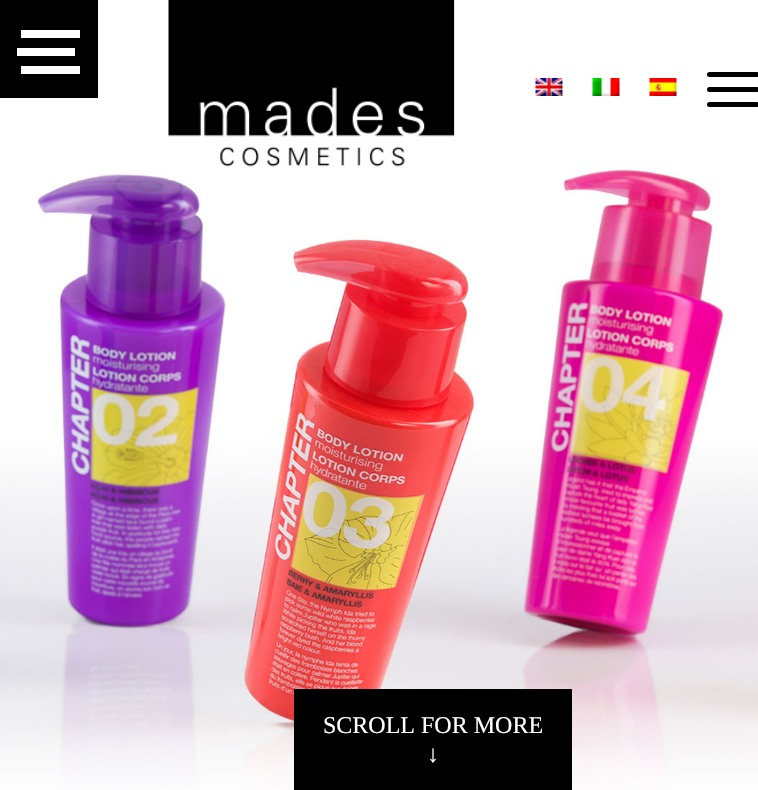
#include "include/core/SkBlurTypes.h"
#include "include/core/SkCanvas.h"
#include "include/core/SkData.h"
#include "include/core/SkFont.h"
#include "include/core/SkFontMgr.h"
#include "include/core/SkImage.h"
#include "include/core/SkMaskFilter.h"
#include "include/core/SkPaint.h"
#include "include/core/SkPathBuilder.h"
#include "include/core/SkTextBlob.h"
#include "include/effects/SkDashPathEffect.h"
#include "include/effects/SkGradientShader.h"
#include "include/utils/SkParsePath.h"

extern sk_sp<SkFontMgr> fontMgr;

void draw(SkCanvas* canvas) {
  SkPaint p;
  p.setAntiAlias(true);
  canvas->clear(SK_ColorWHITE);
  p.setColor(SK_ColorBLACK);
  canvas->drawRect(SkRect::MakeLTRB(0, 0, 98, 98), p);
  p.setColor(SK_ColorWHITE);
  canvas->drawRect(SkRect::MakeLTRB(17, 48, 75, 56), p);
  canvas->drawRect(SkRect::MakeLTRB(21, 30, 80, 38), p);
  canvas->drawRect(SkRect::MakeLTRB(21, 66, 80, 74), p);
  canvas->drawImageRect(SkImages::DeferredFromEncodedData(SkData::MakeFromFileName("images/5.png")), SkRect::MakeLTRB(0, 167, 758, 790), SkSamplingOptions());
  canvas->drawImageRect(SkImages::DeferredFromEncodedData(SkData::MakeFromFileName("images/1.png")), SkRect::MakeLTRB(168, 0, 455, 180), SkSamplingOptions());
  canvas->drawImageRect(SkImages::DeferredFromEncodedData(SkData::MakeFromFileName("images/2.png")), SkRect::MakeLTRB(535, 78, 563, 96), SkSamplingOptions());
  canvas->drawImageRect(SkImages::DeferredFromEncodedData(SkData::MakeFromFileName("images/3.png")), SkRect::MakeLTRB(592, 78, 620, 96), SkSamplingOptions());
  canvas->drawImageRect(SkImages::DeferredFromEncodedData(SkData::MakeFromFileName("images/4.png")), SkRect::MakeLTRB(649, 78, 677, 96), SkSamplingOptions());
  p.setColor(SK_ColorBLACK);
  canvas->drawRoundRect(SkRect::MakeLTRB(707, 87, 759, 92), 2.5f, 2.5f, p);
  canvas->drawRoundRect(SkRect::MakeLTRB(707, 72, 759, 77), 2.5f, 2.5f, p);
  canvas->drawRoundRect(SkRect::MakeLTRB(707, 102, 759, 107), 2.5f, 2.5f, p);
  canvas->drawRect(SkRect::MakeLTRB(294, 689, 572, 790), p);
  SkFont font1(fontMgr->matchFamilyStyle("Liberation Serif", SkFontStyle::Normal()), 24);
  font1.setSubpixel(true);
  p.setColor(SK_ColorWHITE);
  canvas->drawString("SCROLL FOR MORE", 323, 733, font1, p);
  canvas->drawString("↓", 427, 762, font1, p);
}
